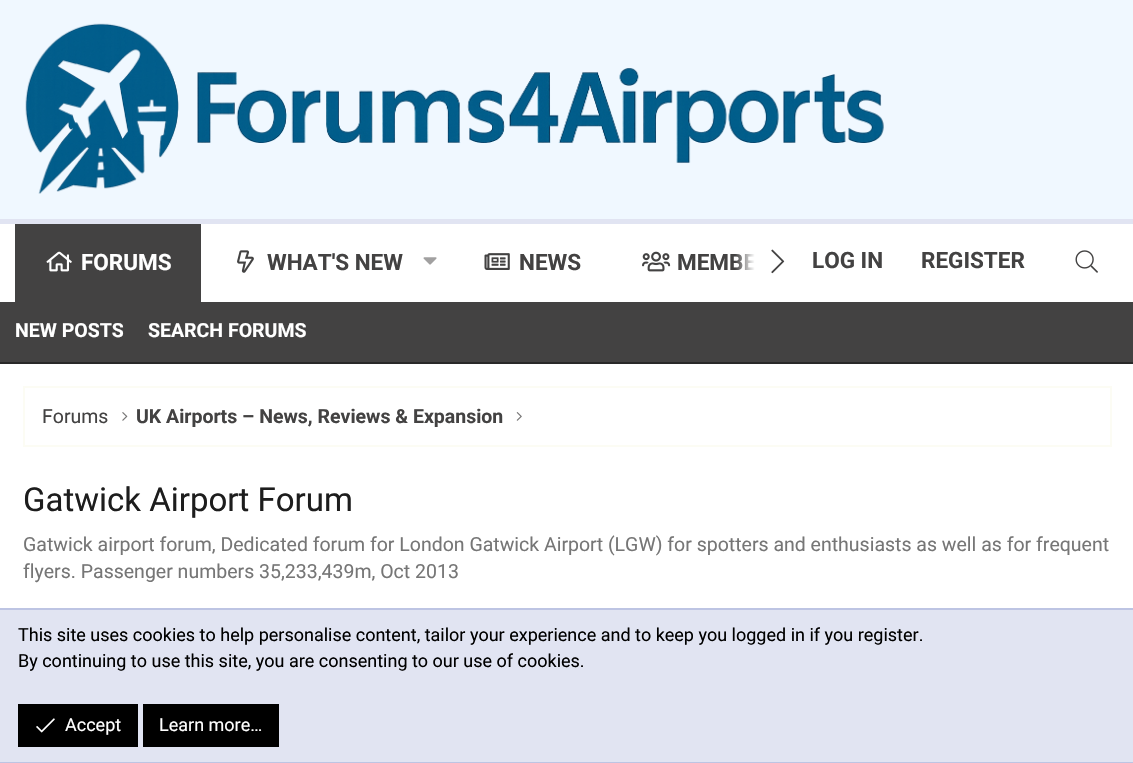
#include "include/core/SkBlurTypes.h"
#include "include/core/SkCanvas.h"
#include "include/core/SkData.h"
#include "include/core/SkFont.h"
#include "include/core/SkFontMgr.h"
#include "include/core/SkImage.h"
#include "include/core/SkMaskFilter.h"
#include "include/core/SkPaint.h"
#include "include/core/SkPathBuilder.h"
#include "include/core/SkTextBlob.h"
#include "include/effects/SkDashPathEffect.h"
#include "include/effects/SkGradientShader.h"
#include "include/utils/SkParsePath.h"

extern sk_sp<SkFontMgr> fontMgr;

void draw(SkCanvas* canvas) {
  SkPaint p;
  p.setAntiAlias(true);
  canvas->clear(SkColorSetRGB(240, 248, 255));
  canvas->drawImageRect(SkImages::DeferredFromEncodedData(SkData::MakeFromFileName("images/1.png")), SkRect::MakeLTRB(25, 23, 884, 194), SkSamplingOptions());
  p.setColor(SK_ColorWHITE);
  canvas->drawRect(SkRect::MakeLTRB(0, 224, 1133, 302), p);
  p.setColor(SkColorSetRGB(225, 228, 242));
  canvas->drawRect(SkRect::MakeLTRB(0, 219, 1133, 224), p);
  p.setColor(SkColorSetRGB(67, 66, 66));
  canvas->drawRect(SkRect::MakeLTRB(15, 224, 201, 302), p);
  canvas->drawImageRect(SkImages::DeferredFromEncodedData(SkData::MakeFromFileName("images/2.png")), SkRect::MakeLTRB(46, 251, 72, 272), SkSamplingOptions());
  canvas->drawImageRect(SkImages::DeferredFromEncodedData(SkData::MakeFromFileName("images/3.png")), SkRect::MakeLTRB(237, 250, 254, 273), SkSamplingOptions());
  canvas->drawImageRect(SkImages::DeferredFromEncodedData(SkData::MakeFromFileName("images/4.png")), SkRect::MakeLTRB(423, 257, 437, 265), SkSamplingOptions());
  canvas->drawImageRect(SkImages::DeferredFromEncodedData(SkData::MakeFromFileName("images/5.png")), SkRect::MakeLTRB(484, 253, 510, 270), SkSamplingOptions());
  canvas->drawImageRect(SkImages::DeferredFromEncodedData(SkData::MakeFromFileName("images/6.png")), SkRect::MakeLTRB(642, 251, 671, 272), SkSamplingOptions());
  canvas->drawImageRect(SkImages::DeferredFromEncodedData(SkData::MakeFromFileName("images/7.png")), SkRect::MakeLTRB(771, 249, 785, 274), SkSamplingOptions());
  canvas->drawImageRect(SkImages::DeferredFromEncodedData(SkData::MakeFromFileName("images/8.png")), SkRect::MakeLTRB(1075, 250, 1098, 273), SkSamplingOptions());
  canvas->drawRect(SkRect::MakeLTRB(0, 302, 1133, 362), p);
  p.setColor(SkColorSetRGB(41, 41, 41));
  canvas->drawRect(SkRect::MakeLTRB(0, 362, 1133, 364), p);
  p.setColor(SK_ColorWHITE);
  canvas->drawRect(SkRect::MakeLTRB(0, 364, 1133, 608), p);
  p.setStyle(SkPaint::kStroke_Style);
  p.setStrokeWidth(2);
  p.setColor(SkColorSetRGB(252, 252, 244));
  canvas->drawRect(SkRect::MakeLTRB(24, 387, 1111, 446), p);
  canvas->drawImageRect(SkImages::DeferredFromEncodedData(SkData::MakeFromFileName("images/9.png")), SkRect::MakeLTRB(122, 412, 128, 421), SkSamplingOptions());
  canvas->drawImageRect(SkImages::DeferredFromEncodedData(SkData::MakeFromFileName("images/10.png")), SkRect::MakeLTRB(516, 412, 522, 421), SkSamplingOptions());
  p.setStyle(SkPaint::kFill_Style);
  p.setColor(SkColorSetRGB(225, 228, 242));
  canvas->drawRect(SkRect::MakeLTRB(0, 610, 1133, 762), p);
  p.setColor(SkColorSetRGB(189, 196, 227));
  canvas->drawRect(SkRect::MakeLTRB(0, 608, 1133, 610), p);
  canvas->drawRect(SkRect::MakeLTRB(0, 762, 1133, 763), p);
  p.setColor(SK_ColorBLACK);
  canvas->drawRect(SkRect::MakeLTRB(18, 704, 138, 747), p);
  canvas->drawImageRect(SkImages::DeferredFromEncodedData(SkData::MakeFromFileName("images/11.png")), SkRect::MakeLTRB(36, 718, 55, 733), SkSamplingOptions());
  canvas->drawRect(SkRect::MakeLTRB(143, 704, 279, 747), p);
  SkFont font1(fontMgr->matchFamilyStyle("Roboto", SkFontStyle::Bold()), 22.5f);
  font1.setSubpixel(true);
  p.setColor(SK_ColorWHITE);
  canvas->drawString("FORUMS", 81, 270, font1, p);
  p.setColor(SkColorSetRGB(67, 66, 66));
  canvas->drawString("WHAT'S NEW", 267, 270, font1, p);
  canvas->drawString("NEWS", 519, 270, font1, p);
  canvas->drawString("MEMBE", 677, 270, font1, p);
  {
    const SkColor colors[] = {SkColorSetARGB(0, 255, 255, 255), SK_ColorWHITE};
    const float stops[] = {0, 0.33f};
    const SkPoint ends[] = {{735, 263}, {795, 263}};
    p.setShader(SkGradientShader::MakeLinear(ends, colors, stops, 2, SkTileMode::kClamp));
    p.setAlpha(255);
  }
  canvas->drawRect(SkRect::MakeLTRB(735, 254, 756, 270), p);
  p.setShader(nullptr);
  p.setColor(SkColorSetRGB(67, 66, 66));
  canvas->drawString("LOG IN", 812, 268, font1, p);
  canvas->drawString("REGISTER", 921, 268, font1, p);
  SkFont font2(fontMgr->matchFamilyStyle("Roboto", SkFontStyle::Bold()), 19.5f);
  font2.setSubpixel(true);
  p.setColor(SK_ColorWHITE);
  canvas->drawString("NEW POSTS", 15, 337, font2, p);
  canvas->drawString("SEARCH FORUMS", 148, 337, font2, p);
  SkFont font3(fontMgr->matchFamilyStyle("Roboto", SkFontStyle::Normal()), 19.5f);
  font3.setSubpixel(true);
  p.setColor(SkColorSetRGB(67, 66, 66));
  canvas->drawString("Forums", 42, 423, font3, p);
  canvas->save();
  canvas->clipRect(SkRect::MakeLTRB(137, 402, 503, 431));
  canvas->drawString("UK Airports – News, Reviews & Expansion", 136, 423, font2, p);
  canvas->restore();
  SkFont font4(fontMgr->matchFamilyStyle("Roboto", SkFontStyle::Normal()), 33);
  font4.setSubpixel(true);
  p.setColor(SkColorSetRGB(29, 29, 29));
  canvas->drawString("Gatwick Airport Forum", 23, 511, font4, p);
  p.setColor(SkColorSetRGB(118, 118, 118));
  canvas->drawString("Gatwick airport forum, Dedicated forum for London Gatwick Airport (LGW) for spotters and enthusiasts as well as for frequent", 23, 551, font3, p);
  canvas->drawString("flyers. Passenger numbers 35,233,439m, Oct 2013", 23, 578, font3, p);
  SkFont font5(fontMgr->matchFamilyStyle("Roboto", SkFontStyle::Normal()), 18);
  font5.setSubpixel(true);
  p.setColor(SK_ColorBLACK);
  canvas->drawString("This site uses cookies to help personalise content, tailor your experience and to keep you logged in if you register.", 18, 641, font5, p);
  canvas->drawString("By continuing to use this site, you are consenting to our use of cookies.", 18, 667, font5, p);
  p.setColor(SK_ColorWHITE);
  canvas->drawString("Accept", 65, 731, font5, p);
  canvas->drawString("Learn more…", 159, 731, font5, p);
}
